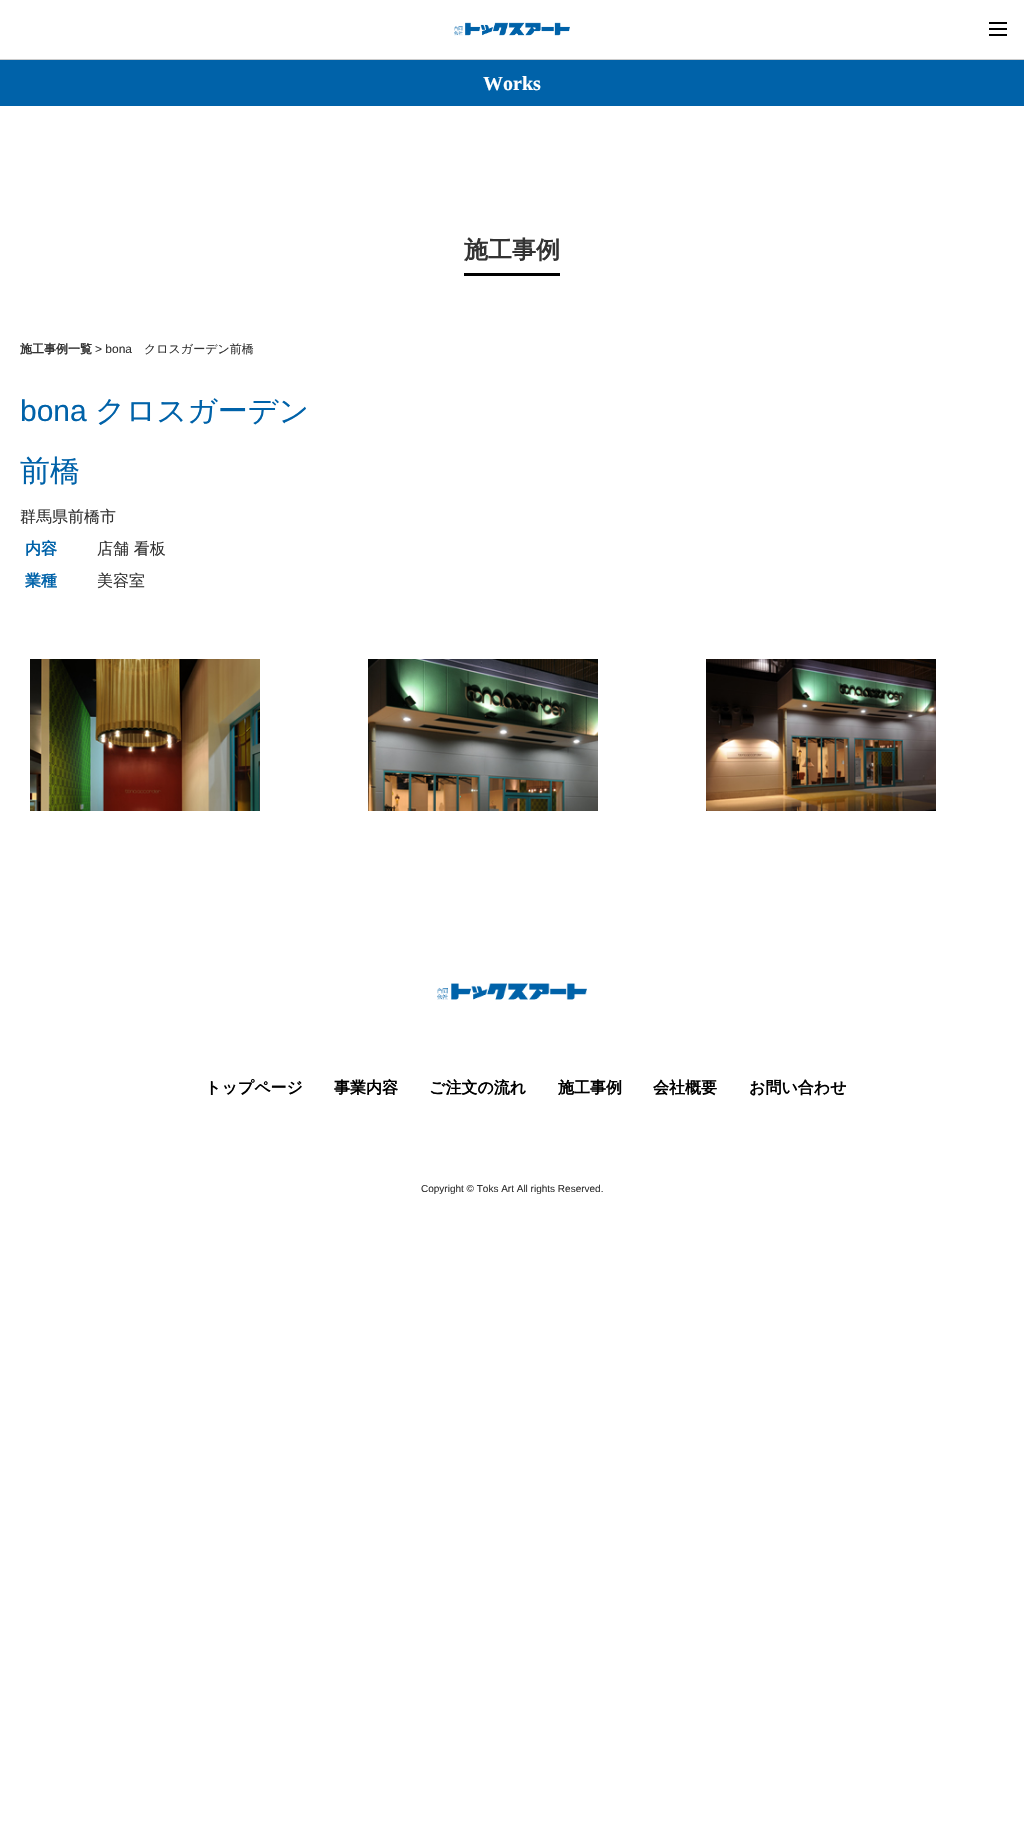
#include "include/core/SkBlurTypes.h"
#include "include/core/SkCanvas.h"
#include "include/core/SkData.h"
#include "include/core/SkFont.h"
#include "include/core/SkFontMgr.h"
#include "include/core/SkImage.h"
#include "include/core/SkMaskFilter.h"
#include "include/core/SkPaint.h"
#include "include/core/SkPathBuilder.h"
#include "include/core/SkTextBlob.h"
#include "include/effects/SkDashPathEffect.h"
#include "include/effects/SkGradientShader.h"
#include "include/utils/SkParsePath.h"

extern sk_sp<SkFontMgr> fontMgr;

void draw(SkCanvas* canvas) {
  SkPaint p;
  p.setAntiAlias(true);
  canvas->clear(SK_ColorWHITE);
  p.setColor(SkColorSetRGB(204, 204, 204));
  canvas->drawRect(SkRect::MakeLTRB(0, 59, 1024, 60), p);
  canvas->drawImageRect(SkImages::DeferredFromEncodedData(SkData::MakeFromFileName("images/1.png")), SkRect::MakeLTRB(454, 22, 570, 36), SkSamplingOptions());
  p.setColor(SK_ColorBLACK);
  canvas->drawRect(SkRect::MakeLTRB(989, 28, 1007, 30), p);
  canvas->drawRect(SkRect::MakeLTRB(989, 22, 1007, 24), p);
  canvas->drawRect(SkRect::MakeLTRB(989, 34, 1007, 36), p);
  p.setColor(SkColorSetRGB(0, 98, 169));
  canvas->drawRect(SkRect::MakeLTRB(0, 60, 1024, 106), p);
  p.setColor(SK_ColorBLACK);
  canvas->drawRect(SkRect::MakeLTRB(464, 273, 560, 276), p);
  canvas->drawImageRect(SkImages::DeferredFromEncodedData(SkData::MakeFromFileName("images/2.png")), SkRect::MakeLTRB(30, 659, 260, 811), SkSamplingOptions());
  canvas->drawImageRect(SkImages::DeferredFromEncodedData(SkData::MakeFromFileName("images/3.png")), SkRect::MakeLTRB(368, 659, 598, 811), SkSamplingOptions());
  canvas->drawImageRect(SkImages::DeferredFromEncodedData(SkData::MakeFromFileName("images/4.png")), SkRect::MakeLTRB(706, 659, 936, 811), SkSamplingOptions());
  canvas->drawImageRect(SkImages::DeferredFromEncodedData(SkData::MakeFromFileName("images/5.png")), SkRect::MakeLTRB(437, 983, 587, 1000), SkSamplingOptions());
  SkFont font1(fontMgr->matchFamilyStyle("Liberation Serif", SkFontStyle::Bold()), 20);
  font1.setSubpixel(true);
  p.setColor(SK_ColorWHITE);
  canvas->drawString("Works", 483, 90, font1, p);
  SkFont font2(fontMgr->matchFamilyStyle("WenQuanYi Zen Hei", SkFontStyle::Bold()), 24);
  font2.setSubpixel(true);
  p.setColor(SkColorSetRGB(51, 51, 51));
  canvas->drawString("施工事例", 464, 258, font2, p);
  SkFont font3(fontMgr->matchFamilyStyle("WenQuanYi Zen Hei", SkFontStyle::Bold()), 12);
  font3.setSubpixel(true);
  canvas->drawString("施工事例一覧", 20, 353, font3, p);
  SkFont font4(fontMgr->matchFamilyStyle("Liberation Sans", SkFontStyle::Normal()), 12);
  font4.setSubpixel(true);
  canvas->drawString("> bona", 95, 353, font4, p);
  SkFont font5(fontMgr->matchFamilyStyle("WenQuanYi Zen Hei", SkFontStyle(500, SkFontStyle::kNormal_Width, SkFontStyle::kUpright_Slant)), 12);
  font5.setSubpixel(true);
  canvas->drawString("クロスガーデン前橋", 144, 353, font5, p);
  SkFont font6(fontMgr->matchFamilyStyle("Liberation Sans", SkFontStyle::Normal()), 30);
  font6.setSubpixel(true);
  p.setColor(SkColorSetRGB(0, 98, 169));
  canvas->drawString("bona", 20, 421, font6, p);
  SkFont font7(fontMgr->matchFamilyStyle("WenQuanYi Zen Hei", SkFontStyle(500, SkFontStyle::kNormal_Width, SkFontStyle::kUpright_Slant)), 30);
  font7.setSubpixel(true);
  canvas->drawString("クロスガーデン", 95, 421, font7, p);
  canvas->drawString("前橋", 20, 481, font7, p);
  SkFont font8(fontMgr->matchFamilyStyle("WenQuanYi Zen Hei", SkFontStyle(500, SkFontStyle::kNormal_Width, SkFontStyle::kUpright_Slant)), 16);
  font8.setSubpixel(true);
  p.setColor(SkColorSetRGB(51, 51, 51));
  canvas->drawString("群馬県前橋市", 20, 522, font8, p);
  SkFont font9(fontMgr->matchFamilyStyle("WenQuanYi Zen Hei", SkFontStyle::Bold()), 16);
  font9.setSubpixel(true);
  p.setColor(SkColorSetRGB(0, 98, 169));
  canvas->drawString("内容", 25, 554, font9, p);
  p.setColor(SkColorSetRGB(51, 51, 51));
  canvas->drawString("店舗 看板", 97, 554, font8, p);
  p.setColor(SkColorSetRGB(0, 98, 169));
  canvas->drawString("業種", 25, 586, font9, p);
  p.setColor(SkColorSetRGB(51, 51, 51));
  canvas->drawString("美容室", 97, 586, font8, p);
  p.setColor(SK_ColorBLACK);
  canvas->drawString("トップページ", 205, 1093, font9, p);
  canvas->drawString("事業内容", 334, 1093, font9, p);
  canvas->drawString("ご注文の流れ", 429, 1093, font9, p);
  canvas->drawString("施工事例", 558, 1093, font9, p);
  canvas->drawString("会社概要", 653, 1093, font9, p);
  canvas->drawString("お問い合わせ", 749, 1093, font9, p);
  SkFont font10(fontMgr->matchFamilyStyle("Liberation Sans", SkFontStyle::Normal()), 10);
  font10.setSubpixel(true);
  p.setColor(SkColorSetRGB(51, 51, 51));
  canvas->drawString("Copyright © Toks Art All rights Reserved.", 421, 1192, font10, p);
}
